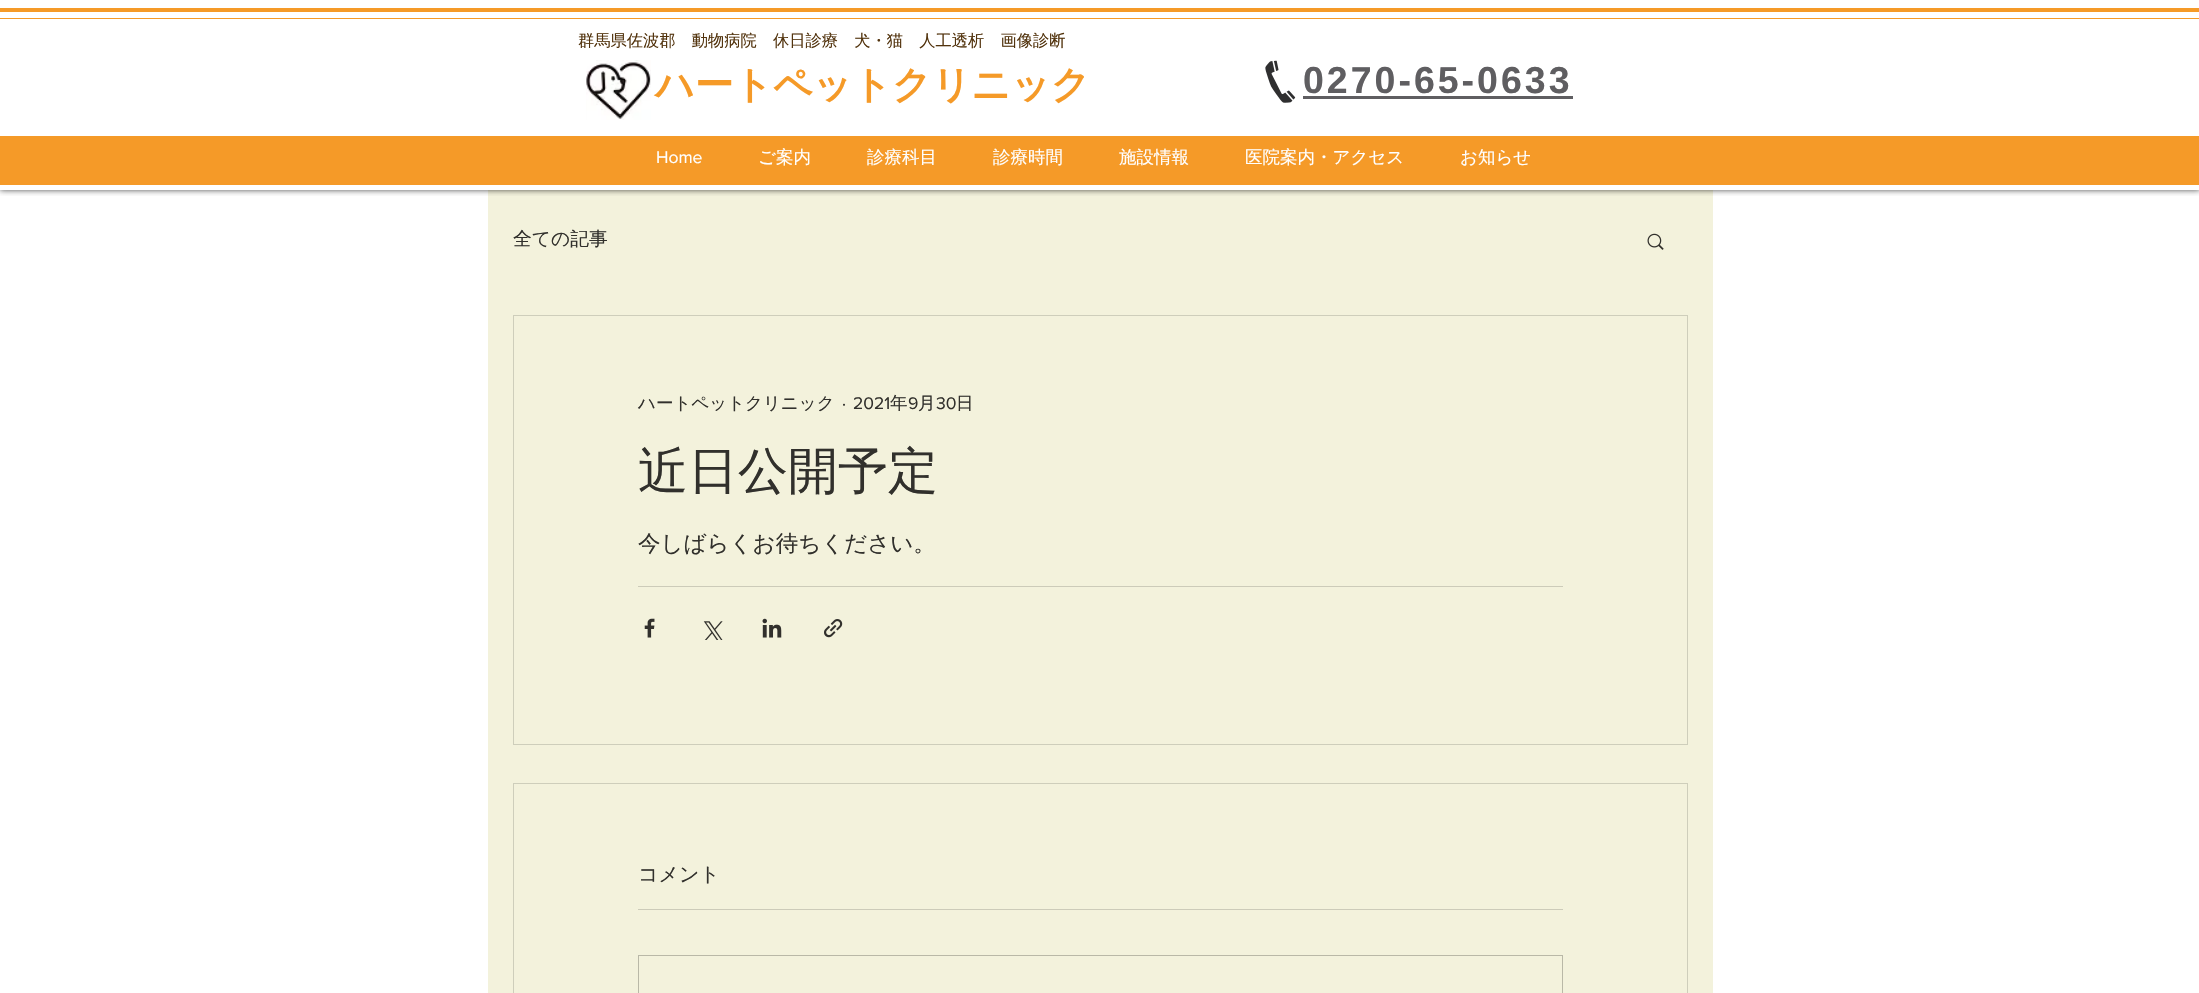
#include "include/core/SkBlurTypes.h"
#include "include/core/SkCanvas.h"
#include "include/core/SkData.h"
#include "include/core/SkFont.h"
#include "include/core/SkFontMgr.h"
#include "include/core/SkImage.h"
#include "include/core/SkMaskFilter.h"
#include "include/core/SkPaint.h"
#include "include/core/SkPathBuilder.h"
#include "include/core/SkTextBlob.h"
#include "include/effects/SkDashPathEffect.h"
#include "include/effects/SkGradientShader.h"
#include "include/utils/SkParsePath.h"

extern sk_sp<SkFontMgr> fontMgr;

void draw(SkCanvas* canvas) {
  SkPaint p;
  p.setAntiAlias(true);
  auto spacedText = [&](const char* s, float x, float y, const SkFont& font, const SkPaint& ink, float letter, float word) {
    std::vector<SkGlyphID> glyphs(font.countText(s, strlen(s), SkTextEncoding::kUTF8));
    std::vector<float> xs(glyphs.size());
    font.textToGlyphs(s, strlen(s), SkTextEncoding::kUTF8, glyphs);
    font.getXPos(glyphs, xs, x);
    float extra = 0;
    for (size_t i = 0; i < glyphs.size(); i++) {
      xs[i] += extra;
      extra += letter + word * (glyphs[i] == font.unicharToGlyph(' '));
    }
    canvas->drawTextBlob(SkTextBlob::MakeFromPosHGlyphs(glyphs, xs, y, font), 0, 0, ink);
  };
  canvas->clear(SK_ColorWHITE);
  p.setColor(SkColorSetRGB(243, 242, 220));
  canvas->drawRect(SkRect::MakeLTRB(488, 190, 1713, 993), p);
  canvas->save();
  canvas->clipRect(SkRect::MakeLTRB(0, 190, 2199, 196));
  p.setColor(SkColorSetARGB(179, 0, 0, 0));
  p.setMaskFilter(SkMaskFilter::MakeBlur(kNormal_SkBlurStyle, 3));
  canvas->drawRect(SkRect::MakeLTRB(0, 0, 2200, 190), p);
  p.setMaskFilter(nullptr);
  canvas->restore();
  p.setColor(SkColorSetRGB(245, 154, 40));
  canvas->drawRect(SkRect::MakeLTRB(0, 8, 2199, 12), p);
  canvas->drawRect(SkRect::MakeLTRB(0, 18, 2199, 19), p);
  canvas->drawImageRect(SkImages::DeferredFromEncodedData(SkData::MakeFromFileName("images/1.png")), SkRect::MakeLTRB(586, 60, 651, 120), SkSamplingOptions());
  canvas->drawImageRect(SkImages::DeferredFromEncodedData(SkData::MakeFromFileName("images/2.png")), SkRect::MakeLTRB(1265, 60, 1296, 103), SkSamplingOptions());
  p.setColor(SkColorSetRGB(95, 94, 97));
  canvas->drawRect(SkRect::MakeLTRB(1303, 96, 1573, 99), p);
  p.setColor(SkColorSetRGB(245, 154, 40));
  canvas->drawRect(SkRect::MakeLTRB(0, 136, 2199, 185), p);
  canvas->drawImageRect(SkImages::DeferredFromEncodedData(SkData::MakeFromFileName("images/3.png")), SkRect::MakeLTRB(1647, 233, 1664, 250), SkSamplingOptions());
  p.setStyle(SkPaint::kStroke_Style);
  p.setStrokeWidth(1);
  p.setColor(SkColorSetRGB(206, 206, 187));
  canvas->drawRect(SkRect::MakeLTRB(513.5f, 315.5f, 1687.5f, 744.5f), p);
  p.setStyle(SkPaint::kFill_Style);
  p.setColor(SkColorSetRGB(204, 203, 185));
  canvas->drawRect(SkRect::MakeLTRB(638, 586, 1563, 587), p);
  canvas->drawImageRect(SkImages::DeferredFromEncodedData(SkData::MakeFromFileName("images/4.png")), SkRect::MakeLTRB(644, 618, 655, 638), SkSamplingOptions());
  canvas->drawImageRect(SkImages::DeferredFromEncodedData(SkData::MakeFromFileName("images/5.png")), SkRect::MakeLTRB(703, 621, 723, 640), SkSamplingOptions());
  canvas->drawImageRect(SkImages::DeferredFromEncodedData(SkData::MakeFromFileName("images/6.png")), SkRect::MakeLTRB(762, 618, 782, 638), SkSamplingOptions());
  canvas->drawImageRect(SkImages::DeferredFromEncodedData(SkData::MakeFromFileName("images/7.png")), SkRect::MakeLTRB(824, 619, 843, 638), SkSamplingOptions());
  p.setStyle(SkPaint::kStroke_Style);
  p.setColor(SkColorSetRGB(206, 206, 187));
  canvas->drawRect(SkRect::MakeLTRB(513.5f, 783.5f, 1687.5f, 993.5f), p);
  p.setStyle(SkPaint::kFill_Style);
  p.setColor(SkColorSetRGB(204, 203, 185));
  canvas->drawRect(SkRect::MakeLTRB(638, 909, 1563, 910), p);
  p.setStyle(SkPaint::kStroke_Style);
  p.setColor(SkColorSetRGB(185, 184, 167));
  canvas->drawRect(SkRect::MakeLTRB(638.5f, 955.5f, 1562.5f, 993.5f), p);
  SkFont font1(fontMgr->matchFamilyStyle("WenQuanYi Zen Hei", SkFontStyle(500, SkFontStyle::kNormal_Width, SkFontStyle::kUpright_Slant)), 16.25f);
  font1.setSubpixel(true);
  p.setStyle(SkPaint::kFill_Style);
  p.setColor(SkColorSetRGB(82, 51, 13));
  canvas->drawString("群馬県佐波郡　動物病院　休日診療　犬・猫　人工透析　画像診断", 578, 46, font1, p);
  SkFont font2(fontMgr->matchFamilyStyle("WenQuanYi Zen Hei", SkFontStyle::Bold()), 38.75f);
  font2.setSubpixel(true);
  p.setColor(SkColorSetRGB(245, 154, 40));
  canvas->drawString("ハートペットクリニック", 655, 98, font2, p);
  SkFont font3(fontMgr->matchFamilyStyle("Liberation Sans", SkFontStyle::Bold()), 37.5f);
  font3.setSubpixel(true);
  p.setColor(SkColorSetRGB(95, 94, 97));
  spacedText("0270-65-0633", 1303, 93, font3, p, 3, 0);
  SkFont font4(fontMgr->matchFamilyStyle("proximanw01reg", SkFontStyle::Normal()), 17.5f);
  font4.setSubpixel(true);
  p.setColor(SK_ColorWHITE);
  canvas->drawString("Home", 656, 163, font4, p);
  SkFont font5(fontMgr->matchFamilyStyle("WenQuanYi Zen Hei", SkFontStyle(500, SkFontStyle::kNormal_Width, SkFontStyle::kUpright_Slant)), 17.5f);
  font5.setSubpixel(true);
  canvas->drawString("ご案内", 758, 163, font5, p);
  canvas->drawString("診療科目", 867, 163, font5, p);
  canvas->drawString("診療時間", 993, 163, font5, p);
  canvas->drawString("施設情報", 1119, 163, font5, p);
  canvas->drawString("医院案内・アクセス", 1245, 163, font5, p);
  canvas->drawString("お知らせ", 1460, 163, font5, p);
  SkFont font6(fontMgr->matchFamilyStyle("WenQuanYi Zen Hei", SkFontStyle(500, SkFontStyle::kNormal_Width, SkFontStyle::kUpright_Slant)), 18.75f);
  font6.setSubpixel(true);
  p.setColor(SkColorSetRGB(49, 48, 44));
  canvas->drawString("全ての記事", 513, 245, font6, p);
  canvas->drawString("ハートペットクリニック", 638, 409, font5, p);
  canvas->drawString("·", 842, 409, font4, p);
  canvas->drawString("2021", 853, 409, font4, p);
  canvas->drawString("年", 890, 409, font5, p);
  canvas->drawString("9", 908, 409, font4, p);
  canvas->drawString("月", 918, 409, font5, p);
  canvas->drawString("30", 936, 409, font4, p);
  canvas->drawString("日", 956, 409, font5, p);
  SkFont font7(fontMgr->matchFamilyStyle("WenQuanYi Zen Hei", SkFontStyle(500, SkFontStyle::kNormal_Width, SkFontStyle::kUpright_Slant)), 50);
  font7.setSubpixel(true);
  canvas->drawString("近日公開予定", 638, 488, font7, p);
  SkFont font8(fontMgr->matchFamilyStyle("WenQuanYi Zen Hei", SkFontStyle(500, SkFontStyle::kNormal_Width, SkFontStyle::kUpright_Slant)), 22.5f);
  font8.setSubpixel(true);
  canvas->drawString("今しばらくお待ちください。", 638, 551, font8, p);
  SkFont font9(fontMgr->matchFamilyStyle("WenQuanYi Zen Hei", SkFontStyle(500, SkFontStyle::kNormal_Width, SkFontStyle::kUpright_Slant)), 20);
  font9.setSubpixel(true);
  canvas->drawString("コメント", 638, 881, font9, p);
}
